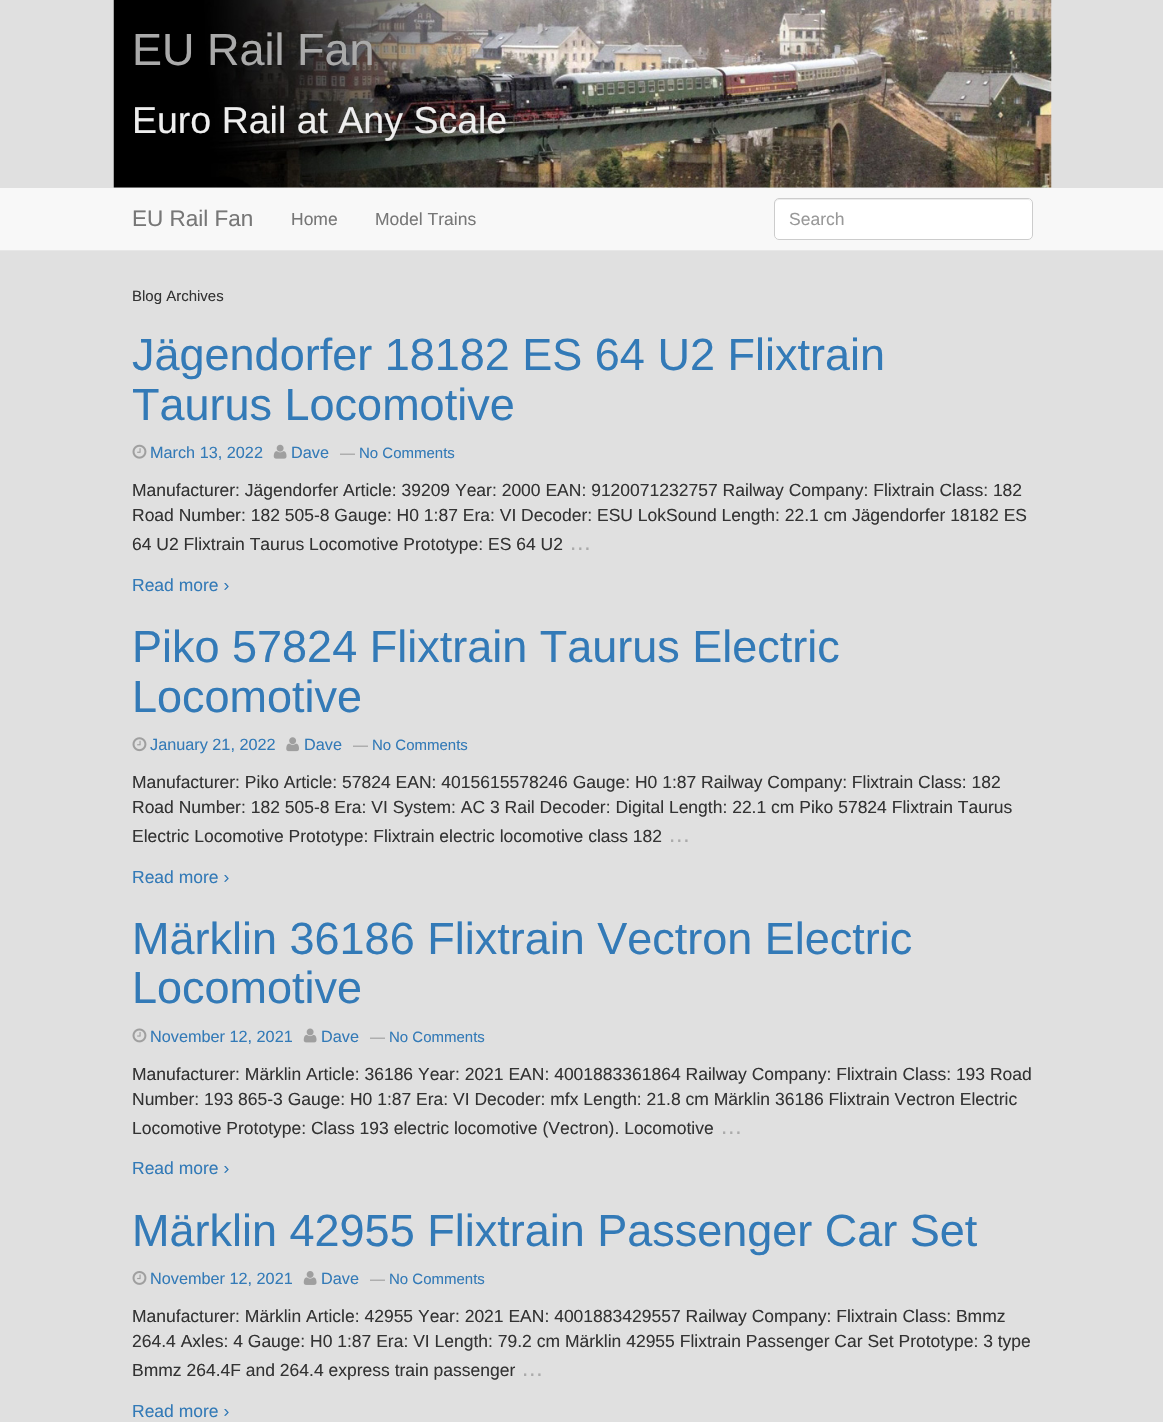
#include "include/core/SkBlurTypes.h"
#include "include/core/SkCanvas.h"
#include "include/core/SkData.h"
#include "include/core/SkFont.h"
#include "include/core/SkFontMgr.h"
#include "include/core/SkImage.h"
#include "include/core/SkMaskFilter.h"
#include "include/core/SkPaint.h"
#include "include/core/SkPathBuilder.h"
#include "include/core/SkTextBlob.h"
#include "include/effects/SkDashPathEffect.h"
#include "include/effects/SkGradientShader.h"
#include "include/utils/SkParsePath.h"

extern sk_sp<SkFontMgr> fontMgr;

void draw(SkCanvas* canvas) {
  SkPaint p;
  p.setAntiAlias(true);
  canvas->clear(SkColorSetRGB(224, 224, 224));
  canvas->drawImageRect(SkImages::DeferredFromEncodedData(SkData::MakeFromFileName("images/1.png")), SkRect::MakeLTRB(113, 0, 1052, 188), SkSamplingOptions());
  p.setColor(SkColorSetRGB(248, 248, 248));
  canvas->drawRect(SkRect::MakeLTRB(0, 188, 1163, 250), p);
  p.setColor(SkColorSetRGB(231, 231, 231));
  canvas->drawRect(SkRect::MakeLTRB(0, 250, 1163, 251), p);
  p.setColor(SK_ColorWHITE);
  canvas->drawRoundRect(SkRect::MakeLTRB(774, 198, 1033, 240), 5, 5, p);
  p.setColor(SkColorSetRGB(236, 236, 236));
  canvas->drawPath(SkPathBuilder().moveTo(779, 200).lineTo(1028, 200).cubicTo(1030, 200, 1031, 202, 1031, 204).lineTo(1031, 203).cubicTo(1031, 201, 1029, 199, 1027, 199).lineTo(779, 199).cubicTo(777, 199, 775, 201, 775, 203).lineTo(775, 204).cubicTo(775, 202, 777, 200, 779, 200).close().detach(), p);
  p.setStyle(SkPaint::kStroke_Style);
  p.setStrokeWidth(1);
  p.setColor(SkColorSetRGB(204, 204, 204));
  canvas->drawRoundRect(SkRect::MakeLTRB(774.5f, 198.5f, 1032.5f, 239.5f), 4.5f, 4.5f, p);
  canvas->drawImageRect(SkImages::DeferredFromEncodedData(SkData::MakeFromFileName("images/2.png")), SkRect::MakeLTRB(132, 444, 147, 459), SkSamplingOptions());
  canvas->drawImageRect(SkImages::DeferredFromEncodedData(SkData::MakeFromFileName("images/3.png")), SkRect::MakeLTRB(273, 444, 287, 459), SkSamplingOptions());
  canvas->drawImageRect(SkImages::DeferredFromEncodedData(SkData::MakeFromFileName("images/4.png")), SkRect::MakeLTRB(132, 737, 147, 752), SkSamplingOptions());
  canvas->drawImageRect(SkImages::DeferredFromEncodedData(SkData::MakeFromFileName("images/5.png")), SkRect::MakeLTRB(286, 737, 299, 752), SkSamplingOptions());
  canvas->drawImageRect(SkImages::DeferredFromEncodedData(SkData::MakeFromFileName("images/6.png")), SkRect::MakeLTRB(132, 1028, 147, 1043), SkSamplingOptions());
  canvas->drawImageRect(SkImages::DeferredFromEncodedData(SkData::MakeFromFileName("images/7.png")), SkRect::MakeLTRB(303, 1028, 317, 1043), SkSamplingOptions());
  canvas->drawImageRect(SkImages::DeferredFromEncodedData(SkData::MakeFromFileName("images/8.png")), SkRect::MakeLTRB(132, 1271, 147, 1285), SkSamplingOptions());
  canvas->drawImageRect(SkImages::DeferredFromEncodedData(SkData::MakeFromFileName("images/9.png")), SkRect::MakeLTRB(303, 1271, 317, 1285), SkSamplingOptions());
  SkFont font1(fontMgr->matchFamilyStyle("Liberation Sans", SkFontStyle::Normal()), 45);
  font1.setSubpixel(true);
  p.setStyle(SkPaint::kFill_Style);
  p.setColor(SkColorSetRGB(170, 170, 170));
  canvas->drawString("EU Rail Fan", 132, 65, font1, p);
  SkFont font2(fontMgr->matchFamilyStyle("Liberation Sans", SkFontStyle::Normal()), 37.5f);
  font2.setSubpixel(true);
  p.setColor(SkColorSetRGB(238, 238, 238));
  canvas->drawString("Euro Rail at Any Scale", 132, 133, font2, p);
  SkFont font3(fontMgr->matchFamilyStyle("Liberation Sans", SkFontStyle::Normal()), 22.5f);
  font3.setSubpixel(true);
  p.setColor(SkColorSetRGB(119, 119, 119));
  canvas->drawString("EU Rail Fan", 132, 226, font3, p);
  SkFont font4(fontMgr->matchFamilyStyle("Liberation Sans", SkFontStyle::Normal()), 17.5f);
  font4.setSubpixel(true);
  canvas->drawString("Home", 291, 225, font4, p);
  canvas->drawString("Model Trains", 375, 225, font4, p);
  p.setColor(SkColorSetRGB(153, 153, 153));
  canvas->drawString("Search", 789, 225, font4, p);
  SkFont font5(fontMgr->matchFamilyStyle("Liberation Sans", SkFontStyle::Normal()), 15);
  font5.setSubpixel(true);
  p.setColor(SkColorSetRGB(51, 51, 51));
  canvas->drawString("Blog Archives", 132, 301, font5, p);
  p.setColor(SkColorSetRGB(51, 122, 183));
  canvas->drawString("Jägendorfer 18182 ES 64 U2 Flixtrain", 132, 370, font1, p);
  canvas->drawString("Taurus Locomotive", 132, 420, font1, p);
  SkFont font6(fontMgr->matchFamilyStyle("Liberation Sans", SkFontStyle::Normal()), 16.25f);
  font6.setSubpixel(true);
  canvas->drawString("March 13, 2022", 150, 458, font6, p);
  canvas->drawString("Dave", 291, 458, font6, p);
  p.setColor(SkColorSetRGB(159, 159, 159));
  canvas->drawString("—", 340, 458, font5, p);
  p.setColor(SkColorSetRGB(51, 122, 183));
  canvas->drawString("No Comments", 359, 458, font5, p);
  p.setColor(SkColorSetRGB(51, 51, 51));
  canvas->drawString("Manufacturer: Jägendorfer Article: 39209 Year: 2000 EAN: 9120071232757 Railway Company: Flixtrain Class: 182", 132, 496, font4, p);
  canvas->drawString("Road Number: 182 505-8 Gauge: H0 1:87 Era: VI Decoder: ESU LokSound Length: 22.1 cm Jägendorfer 18182 ES", 132, 521, font4, p);
  canvas->drawString("64 U2 Flixtrain Taurus Locomotive Prototype: ES 64 U2", 132, 550, font4, p);
  p.setColor(SkColorSetRGB(170, 170, 170));
  canvas->drawString("…", 569, 550, font3, p);
  p.setColor(SkColorSetRGB(51, 122, 183));
  canvas->drawString("Read more ›", 132, 591, font4, p);
  canvas->drawString("Piko 57824 Flixtrain Taurus Electric", 132, 662, font1, p);
  canvas->drawString("Locomotive", 132, 712, font1, p);
  canvas->drawString("January 21, 2022", 150, 750, font6, p);
  canvas->drawString("Dave", 304, 750, font6, p);
  p.setColor(SkColorSetRGB(159, 159, 159));
  canvas->drawString("—", 353, 750, font5, p);
  p.setColor(SkColorSetRGB(51, 122, 183));
  canvas->drawString("No Comments", 372, 750, font5, p);
  p.setColor(SkColorSetRGB(51, 51, 51));
  canvas->drawString("Manufacturer: Piko Article: 57824 EAN: 4015615578246 Gauge: H0 1:87 Railway Company: Flixtrain Class: 182", 132, 788, font4, p);
  canvas->drawString("Road Number: 182 505-8 Era: VI System: AC 3 Rail Decoder: Digital Length: 22.1 cm Piko 57824 Flixtrain Taurus", 132, 813, font4, p);
  canvas->drawString("Electric Locomotive Prototype: Flixtrain electric locomotive class 182", 132, 842, font4, p);
  p.setColor(SkColorSetRGB(170, 170, 170));
  canvas->drawString("…", 668, 842, font3, p);
  p.setColor(SkColorSetRGB(51, 122, 183));
  canvas->drawString("Read more ›", 132, 883, font4, p);
  canvas->drawString("Märklin 36186 Flixtrain Vectron Electric", 132, 954, font1, p);
  canvas->drawString("Locomotive", 132, 1003, font1, p);
  canvas->drawString("November 12, 2021", 150, 1042, font6, p);
  canvas->drawString("Dave", 321, 1042, font6, p);
  p.setColor(SkColorSetRGB(159, 159, 159));
  canvas->drawString("—", 370, 1042, font5, p);
  p.setColor(SkColorSetRGB(51, 122, 183));
  canvas->drawString("No Comments", 389, 1042, font5, p);
  p.setColor(SkColorSetRGB(51, 51, 51));
  canvas->drawString("Manufacturer: Märklin Article: 36186 Year: 2021 EAN: 4001883361864 Railway Company: Flixtrain Class: 193 Road", 132, 1080, font4, p);
  canvas->drawString("Number: 193 865-3 Gauge: H0 1:87 Era: VI Decoder: mfx Length: 21.8 cm Märklin 36186 Flixtrain Vectron Electric", 132, 1105, font4, p);
  canvas->drawString("Locomotive Prototype: Class 193 electric locomotive (Vectron). Locomotive", 132, 1134, font4, p);
  p.setColor(SkColorSetRGB(170, 170, 170));
  canvas->drawString("…", 720, 1134, font3, p);
  p.setColor(SkColorSetRGB(51, 122, 183));
  canvas->drawString("Read more ›", 132, 1174, font4, p);
  canvas->drawString("Märklin 42955 Flixtrain Passenger Car Set", 132, 1246, font1, p);
  canvas->drawString("November 12, 2021", 150, 1284, font6, p);
  canvas->drawString("Dave", 321, 1284, font6, p);
  p.setColor(SkColorSetRGB(159, 159, 159));
  canvas->drawString("—", 370, 1284, font5, p);
  p.setColor(SkColorSetRGB(51, 122, 183));
  canvas->drawString("No Comments", 389, 1284, font5, p);
  p.setColor(SkColorSetRGB(51, 51, 51));
  canvas->drawString("Manufacturer: Märklin Article: 42955 Year: 2021 EAN: 4001883429557 Railway Company: Flixtrain Class: Bmmz", 132, 1322, font4, p);
  canvas->drawString("264.4 Axles: 4 Gauge: H0 1:87 Era: VI Length: 79.2 cm Märklin 42955 Flixtrain Passenger Car Set Prototype: 3 type", 132, 1347, font4, p);
  canvas->drawString("Bmmz 264.4F and 264.4 express train passenger", 132, 1376, font4, p);
  p.setColor(SkColorSetRGB(170, 170, 170));
  canvas->drawString("…", 521, 1376, font3, p);
  p.setColor(SkColorSetRGB(51, 122, 183));
  canvas->drawString("Read more ›", 132, 1417, font4, p);
}
